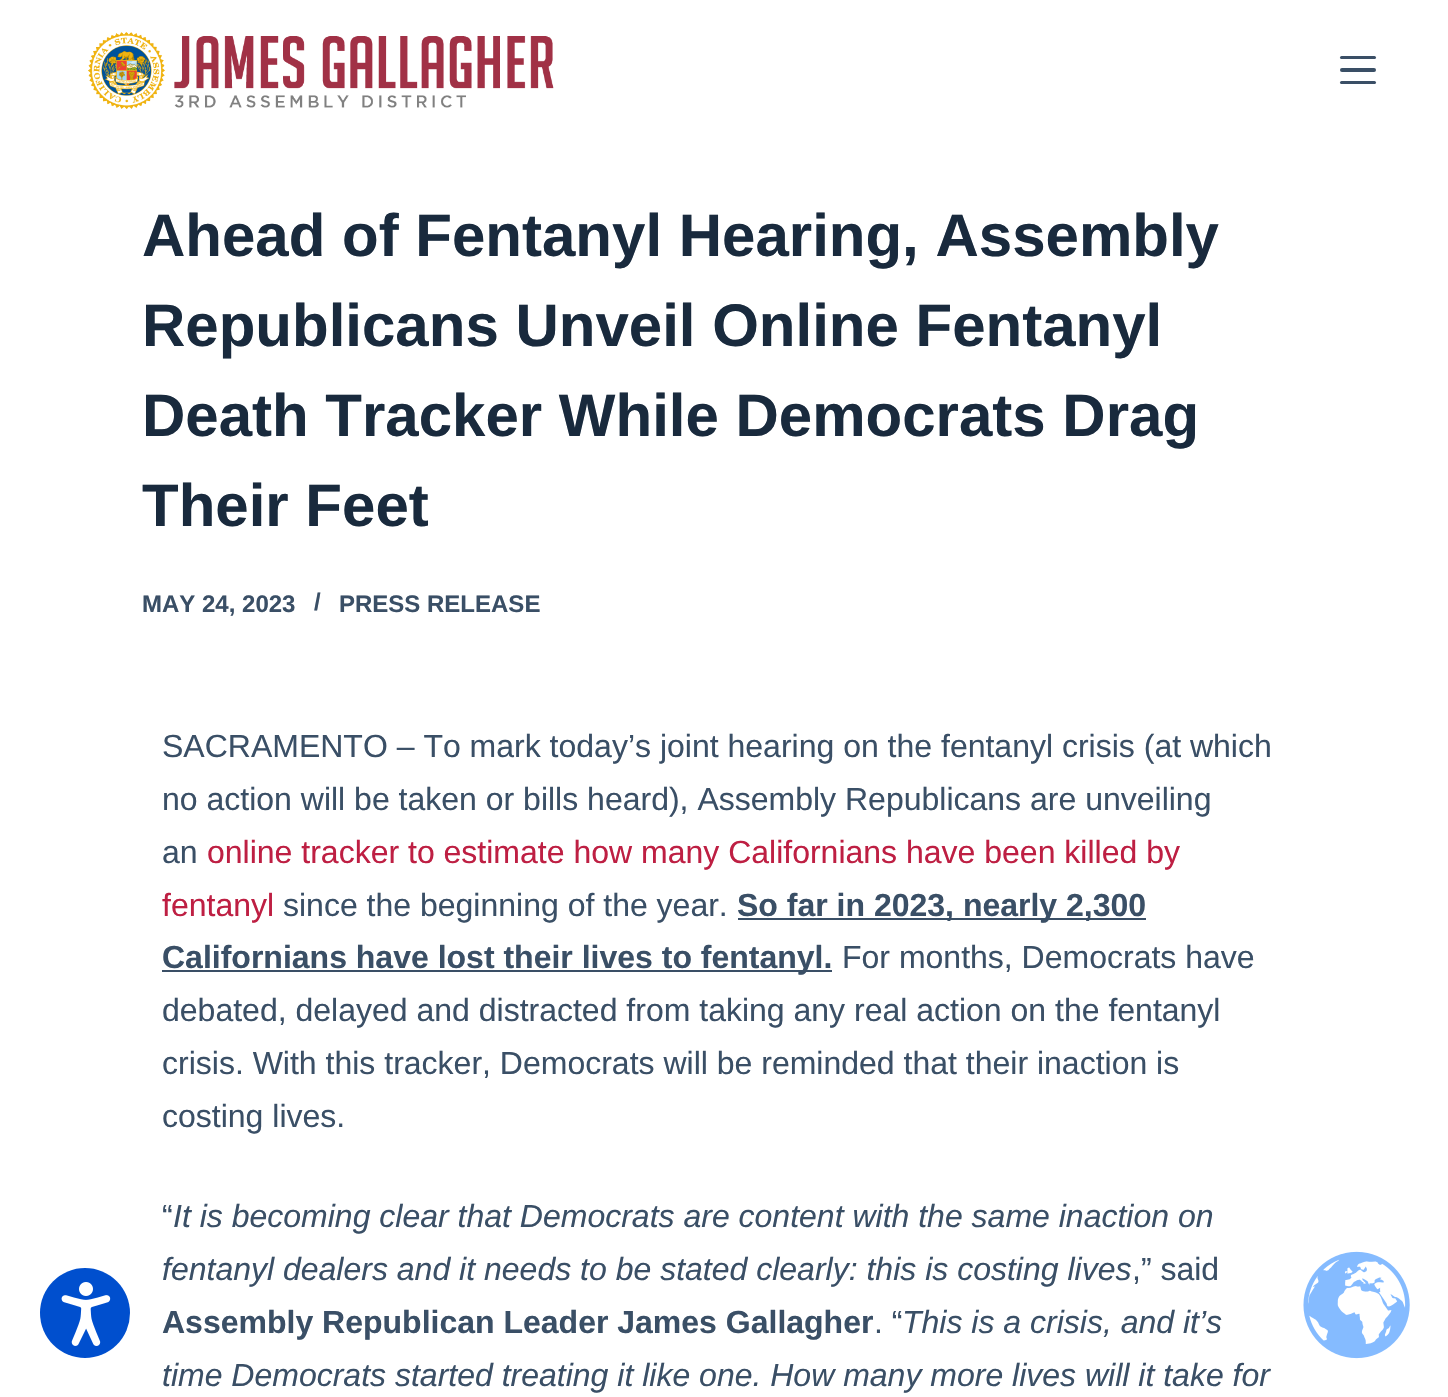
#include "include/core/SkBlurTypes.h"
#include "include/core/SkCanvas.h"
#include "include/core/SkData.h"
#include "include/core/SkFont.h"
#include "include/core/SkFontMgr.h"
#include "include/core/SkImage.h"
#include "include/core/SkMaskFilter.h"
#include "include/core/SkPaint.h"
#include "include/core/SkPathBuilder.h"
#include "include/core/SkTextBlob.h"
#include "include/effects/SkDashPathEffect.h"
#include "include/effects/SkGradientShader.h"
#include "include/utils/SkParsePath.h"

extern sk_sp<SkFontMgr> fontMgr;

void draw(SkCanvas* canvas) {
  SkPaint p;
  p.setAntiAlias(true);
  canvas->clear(SK_ColorWHITE);
  p.setColor(SkColorSetRGB(0, 79, 206));
  canvas->drawCircle(85, 1313, 45, p);
  canvas->drawImageRect(SkImages::DeferredFromEncodedData(SkData::MakeFromFileName("images/1.png")), SkRect::MakeLTRB(61, 1282, 111, 1346), SkSamplingOptions());
  canvas->drawImageRect(SkImages::DeferredFromEncodedData(SkData::MakeFromFileName("images/2.png")), SkRect::MakeLTRB(88, 32, 554, 110), SkSamplingOptions());
  p.setColor(SkColorSetRGB(58, 79, 102));
  canvas->drawRoundRect(SkRect::MakeLTRB(1340, 56, 1376, 59), 1.5f, 1.5f, p);
  canvas->drawRoundRect(SkRect::MakeLTRB(1340, 68, 1376, 72), 2, 2, p);
  canvas->drawRoundRect(SkRect::MakeLTRB(1340, 81, 1376, 84), 1.5f, 1.5f, p);
  canvas->drawRect(SkRect::MakeLTRB(738, 918, 1146, 920), p);
  canvas->drawRect(SkRect::MakeLTRB(162, 970, 832, 972), p);
  canvas->drawImageRect(SkImages::DeferredFromEncodedData(SkData::MakeFromFileName("images/3.png")), SkRect::MakeLTRB(1303, 1251, 1410, 1359), SkSamplingOptions());
  SkFont font1(fontMgr->matchFamilyStyle("Liberation Sans", SkFontStyle::Bold()), 60);
  font1.setSubpixel(true);
  p.setColor(SkColorSetRGB(25, 42, 61));
  canvas->drawString("Ahead of Fentanyl Hearing, Assembly", 142, 256, font1, p);
  canvas->drawString("Republicans Unveil Online Fentanyl", 142, 346, font1, p);
  canvas->drawString("Death Tracker While Democrats Drag", 142, 436, font1, p);
  canvas->drawString("Their Feet", 142, 526, font1, p);
  SkFont font2(fontMgr->matchFamilyStyle("Liberation Sans", SkFontStyle::Bold()), 24);
  font2.setSubpixel(true);
  p.setColor(SkColorSetRGB(58, 79, 102));
  canvas->drawString("MAY 24, 2023", 142, 612, font2, p);
  canvas->drawString("/", 314, 610, font2, p);
  canvas->drawString("PRESS RELEASE", 339, 612, font2, p);
  SkFont font3(fontMgr->matchFamilyStyle("Liberation Sans", SkFontStyle::Normal()), 32);
  font3.setSubpixel(true);
  canvas->drawString("SACRAMENTO – To mark today’s joint hearing on the fentanyl crisis (at which", 162, 757, font3, p);
  canvas->drawString("no action will be taken or bills heard), Assembly Republicans are unveiling", 162, 810, font3, p);
  canvas->drawString("an", 162, 863, font3, p);
  p.setColor(SkColorSetRGB(190, 31, 67));
  canvas->drawString("online tracker to estimate how many Californians have been killed by", 207, 863, font3, p);
  canvas->drawString("fentanyl", 162, 916, font3, p);
  p.setColor(SkColorSetRGB(58, 79, 102));
  canvas->drawString("since the beginning of the year.", 283, 916, font3, p);
  SkFont font4(fontMgr->matchFamilyStyle("Liberation Sans", SkFontStyle::Bold()), 32);
  font4.setSubpixel(true);
  canvas->drawString("So far in 2023, nearly 2,300", 737, 916, font4, p);
  canvas->drawString("Californians have lost their lives to fentanyl.", 162, 968, font4, p);
  canvas->drawString("For months, Democrats have", 842, 968, font3, p);
  canvas->drawString("debated, delayed and distracted from taking any real action on the fentanyl", 162, 1021, font3, p);
  canvas->drawString("crisis. With this tracker, Democrats will be reminded that their inaction is", 162, 1074, font3, p);
  canvas->drawString("costing lives.", 162, 1127, font3, p);
  canvas->drawString("“", 162, 1227, font3, p);
  SkFont font5(fontMgr->matchFamilyStyle("Liberation Sans", SkFontStyle::Italic()), 32);
  font5.setSubpixel(true);
  canvas->drawString("It is becoming clear that Democrats are content with the same inaction on", 173, 1227, font5, p);
  canvas->drawString("fentanyl dealers and it needs to be stated clearly: this is costing lives", 162, 1280, font5, p);
  canvas->drawString(",” said", 1132, 1280, font3, p);
  canvas->drawString("Assembly Republican Leader James Gallagher", 162, 1333, font4, p);
  canvas->drawString(". “", 874, 1333, font3, p);
  canvas->drawString("This is a crisis, and it’s", 902, 1333, font5, p);
  canvas->drawString("time Democrats started treating it like one. How many more lives will it take for", 162, 1386, font5, p);
}
